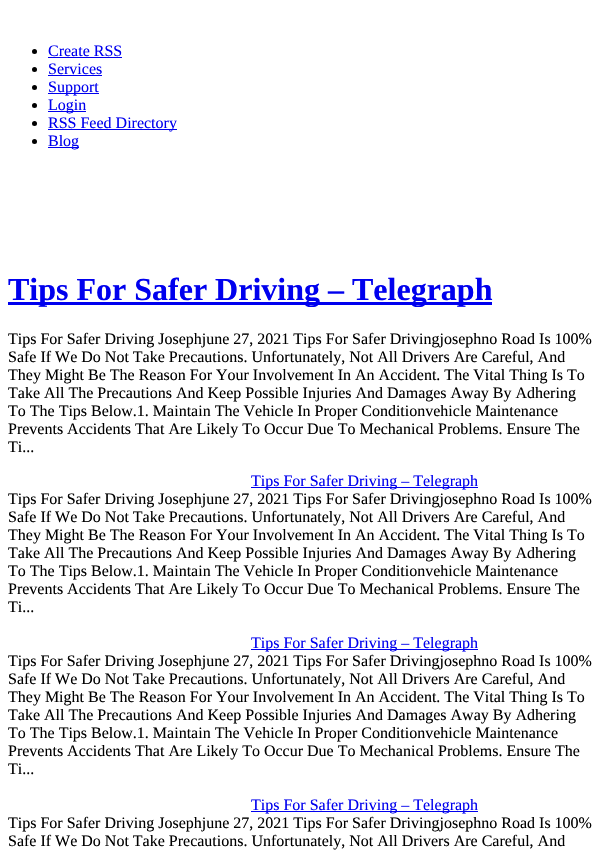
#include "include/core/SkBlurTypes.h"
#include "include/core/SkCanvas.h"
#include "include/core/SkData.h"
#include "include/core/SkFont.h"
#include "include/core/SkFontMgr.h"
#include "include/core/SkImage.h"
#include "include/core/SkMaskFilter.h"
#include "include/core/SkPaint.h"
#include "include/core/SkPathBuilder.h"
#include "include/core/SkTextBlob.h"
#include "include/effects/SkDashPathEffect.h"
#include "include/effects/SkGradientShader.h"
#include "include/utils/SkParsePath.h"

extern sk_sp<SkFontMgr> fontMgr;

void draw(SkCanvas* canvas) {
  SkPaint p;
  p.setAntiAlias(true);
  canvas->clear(SK_ColorWHITE);
  p.setColor(SK_ColorBLACK);
  canvas->drawCircle(34.5f, 51.5f, 2.5f, p);
  p.setColor(SkColorSetRGB(0, 0, 238));
  canvas->drawRect(SkRect::MakeLTRB(48, 57, 122, 58), p);
  p.setColor(SK_ColorBLACK);
  canvas->drawCircle(34.5f, 69.5f, 2.5f, p);
  p.setColor(SkColorSetRGB(0, 0, 238));
  canvas->drawRect(SkRect::MakeLTRB(48, 75, 102, 76), p);
  p.setColor(SK_ColorBLACK);
  canvas->drawCircle(34.5f, 87.5f, 2.5f, p);
  p.setColor(SkColorSetRGB(0, 0, 238));
  canvas->drawRect(SkRect::MakeLTRB(48, 93, 99, 94), p);
  p.setColor(SK_ColorBLACK);
  canvas->drawCircle(34.5f, 105.5f, 2.5f, p);
  p.setColor(SkColorSetRGB(0, 0, 238));
  canvas->drawRect(SkRect::MakeLTRB(48, 111, 86, 112), p);
  p.setColor(SK_ColorBLACK);
  canvas->drawCircle(34.5f, 123.5f, 2.5f, p);
  p.setColor(SkColorSetRGB(0, 0, 238));
  canvas->drawRect(SkRect::MakeLTRB(48, 129, 177, 130), p);
  p.setColor(SK_ColorBLACK);
  canvas->drawCircle(34.5f, 141.5f, 2.5f, p);
  p.setColor(SkColorSetRGB(0, 0, 238));
  canvas->drawRect(SkRect::MakeLTRB(48, 147, 79, 148), p);
  canvas->drawRect(SkRect::MakeLTRB(8, 302, 492, 305), p);
  canvas->drawRect(SkRect::MakeLTRB(251, 487, 478, 488), p);
  canvas->drawRect(SkRect::MakeLTRB(251, 649, 478, 650), p);
  canvas->drawRect(SkRect::MakeLTRB(251, 811, 478, 812), p);
  SkFont font1(fontMgr->matchFamilyStyle("Liberation Serif", SkFontStyle::Normal()), 16);
  font1.setSubpixel(true);
  canvas->drawString("Create RSS", 48, 56, font1, p);
  canvas->drawString("Services", 48, 74, font1, p);
  canvas->drawString("Support", 48, 92, font1, p);
  canvas->drawString("Login", 48, 110, font1, p);
  canvas->drawString("RSS Feed Directory", 48, 128, font1, p);
  canvas->drawString("Blog", 48, 146, font1, p);
  SkFont font2(fontMgr->matchFamilyStyle("Liberation Serif", SkFontStyle::Bold()), 32);
  font2.setSubpixel(true);
  canvas->drawString("Tips For Safer Driving – Telegraph", 8, 300, font2, p);
  p.setColor(SK_ColorBLACK);
  canvas->drawString("Tips For Safer Driving Josephjune 27, 2021 Tips For Safer Drivingjosephno Road Is 100%", 8, 344, font1, p);
  canvas->drawString("Safe If We Do Not Take Precautions. Unfortunately, Not All Drivers Are Careful, And", 8, 362, font1, p);
  canvas->drawString("They Might Be The Reason For Your Involvement In An Accident. The Vital Thing Is To", 8, 380, font1, p);
  canvas->drawString("Take All The Precautions And Keep Possible Injuries And Damages Away By Adhering", 8, 398, font1, p);
  canvas->drawString("To The Tips Below.1. Maintain The Vehicle In Proper Conditionvehicle Maintenance", 8, 416, font1, p);
  canvas->drawString("Prevents Accidents That Are Likely To Occur Due To Mechanical Problems. Ensure The", 8, 434, font1, p);
  canvas->drawString("Ti...", 8, 452, font1, p);
  p.setColor(SkColorSetRGB(0, 0, 238));
  canvas->drawString("Tips For Safer Driving – Telegraph", 251, 486, font1, p);
  p.setColor(SK_ColorBLACK);
  canvas->drawString("Tips For Safer Driving Josephjune 27, 2021 Tips For Safer Drivingjosephno Road Is 100%", 8, 504, font1, p);
  canvas->drawString("Safe If We Do Not Take Precautions. Unfortunately, Not All Drivers Are Careful, And", 8, 522, font1, p);
  canvas->drawString("They Might Be The Reason For Your Involvement In An Accident. The Vital Thing Is To", 8, 540, font1, p);
  canvas->drawString("Take All The Precautions And Keep Possible Injuries And Damages Away By Adhering", 8, 558, font1, p);
  canvas->drawString("To The Tips Below.1. Maintain The Vehicle In Proper Conditionvehicle Maintenance", 8, 576, font1, p);
  canvas->drawString("Prevents Accidents That Are Likely To Occur Due To Mechanical Problems. Ensure The", 8, 594, font1, p);
  canvas->drawString("Ti...", 8, 612, font1, p);
  p.setColor(SkColorSetRGB(0, 0, 238));
  canvas->drawString("Tips For Safer Driving – Telegraph", 251, 648, font1, p);
  p.setColor(SK_ColorBLACK);
  canvas->drawString("Tips For Safer Driving Josephjune 27, 2021 Tips For Safer Drivingjosephno Road Is 100%", 8, 666, font1, p);
  canvas->drawString("Safe If We Do Not Take Precautions. Unfortunately, Not All Drivers Are Careful, And", 8, 684, font1, p);
  canvas->drawString("They Might Be The Reason For Your Involvement In An Accident. The Vital Thing Is To", 8, 702, font1, p);
  canvas->drawString("Take All The Precautions And Keep Possible Injuries And Damages Away By Adhering", 8, 720, font1, p);
  canvas->drawString("To The Tips Below.1. Maintain The Vehicle In Proper Conditionvehicle Maintenance", 8, 738, font1, p);
  canvas->drawString("Prevents Accidents That Are Likely To Occur Due To Mechanical Problems. Ensure The", 8, 756, font1, p);
  canvas->drawString("Ti...", 8, 774, font1, p);
  p.setColor(SkColorSetRGB(0, 0, 238));
  canvas->drawString("Tips For Safer Driving – Telegraph", 251, 810, font1, p);
  p.setColor(SK_ColorBLACK);
  canvas->drawString("Tips For Safer Driving Josephjune 27, 2021 Tips For Safer Drivingjosephno Road Is 100%", 8, 828, font1, p);
  canvas->drawString("Safe If We Do Not Take Precautions. Unfortunately, Not All Drivers Are Careful, And", 8, 846, font1, p);
}
